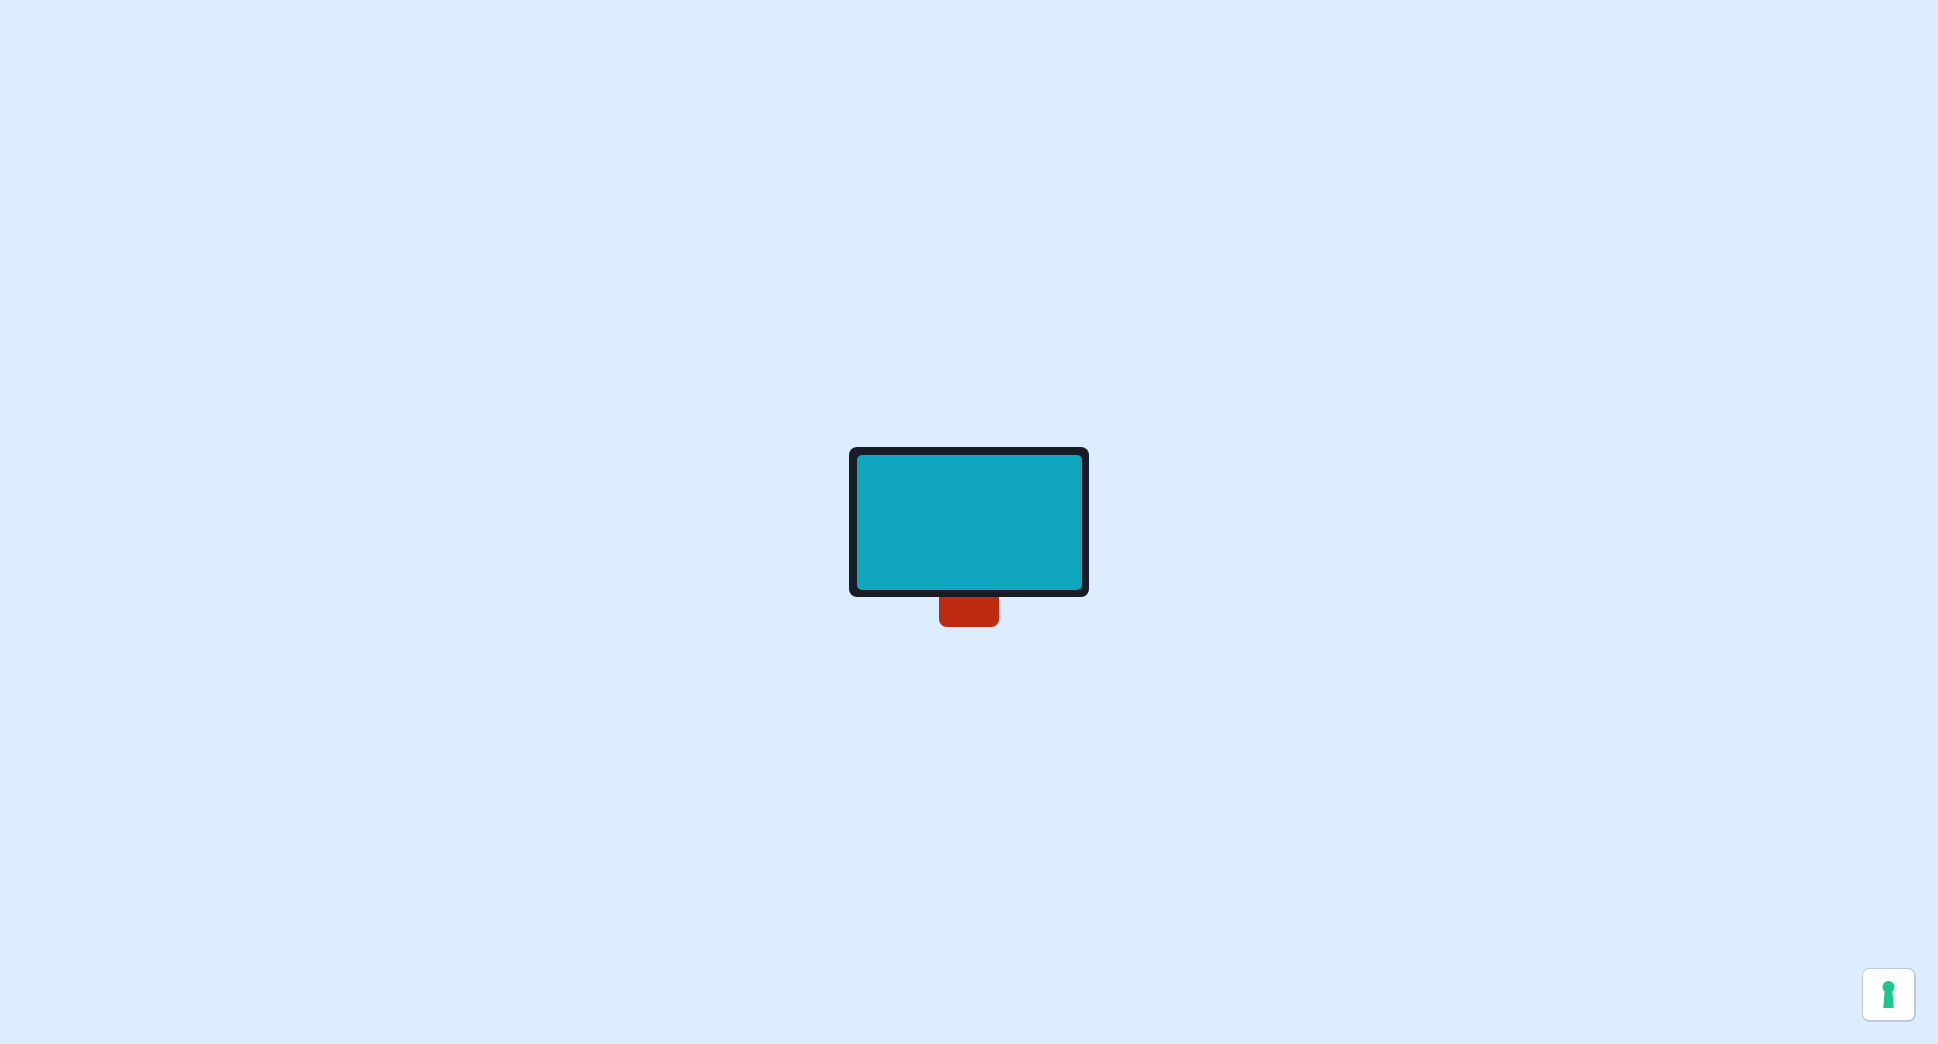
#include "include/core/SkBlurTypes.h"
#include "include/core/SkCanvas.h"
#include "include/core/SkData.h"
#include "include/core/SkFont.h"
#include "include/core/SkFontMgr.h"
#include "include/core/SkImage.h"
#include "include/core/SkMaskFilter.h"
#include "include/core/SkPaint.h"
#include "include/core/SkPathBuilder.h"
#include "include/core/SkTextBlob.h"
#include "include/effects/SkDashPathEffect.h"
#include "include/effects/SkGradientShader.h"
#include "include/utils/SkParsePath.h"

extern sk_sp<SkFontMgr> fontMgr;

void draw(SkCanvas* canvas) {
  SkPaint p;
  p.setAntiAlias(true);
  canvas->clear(SkColorSetRGB(220, 237, 255));
  p.setColor(SkColorSetRGB(23, 28, 38));
  canvas->drawRoundRect(SkRect::MakeLTRB(849, 447, 1089, 597), 8, 8, p);
  p.setColor(SkColorSetRGB(16, 166, 192));
  canvas->drawRoundRect(SkRect::MakeLTRB(857, 455, 1082, 590), 5, 5, p);
  p.setColor(SkColorSetRGB(192, 42, 16));
  canvas->drawPath(SkPathBuilder().moveTo(939, 597).lineTo(999, 597).lineTo(999, 619).cubicTo(999, 623.5f, 995.5f, 627, 991, 627).lineTo(947, 627).cubicTo(942.5f, 627, 939, 623.5f, 939, 619).close().detach(), p);
  p.setStyle(SkPaint::kStroke_Style);
  p.setStrokeWidth(2);
  p.setColor(SkColorSetRGB(187, 201, 217));
  canvas->drawRoundRect(SkRect::MakeLTRB(1863, 969, 1915, 1021), 7, 7, p);
  p.setStyle(SkPaint::kFill_Style);
  p.setColor(SK_ColorWHITE);
  canvas->drawRoundRect(SkRect::MakeLTRB(1863, 969, 1914, 1020), 6, 6, p);
  canvas->drawImageRect(SkImages::DeferredFromEncodedData(SkData::MakeFromFileName("images/1.png")), SkRect::MakeLTRB(1882, 981, 1895, 1008), SkSamplingOptions());
}
